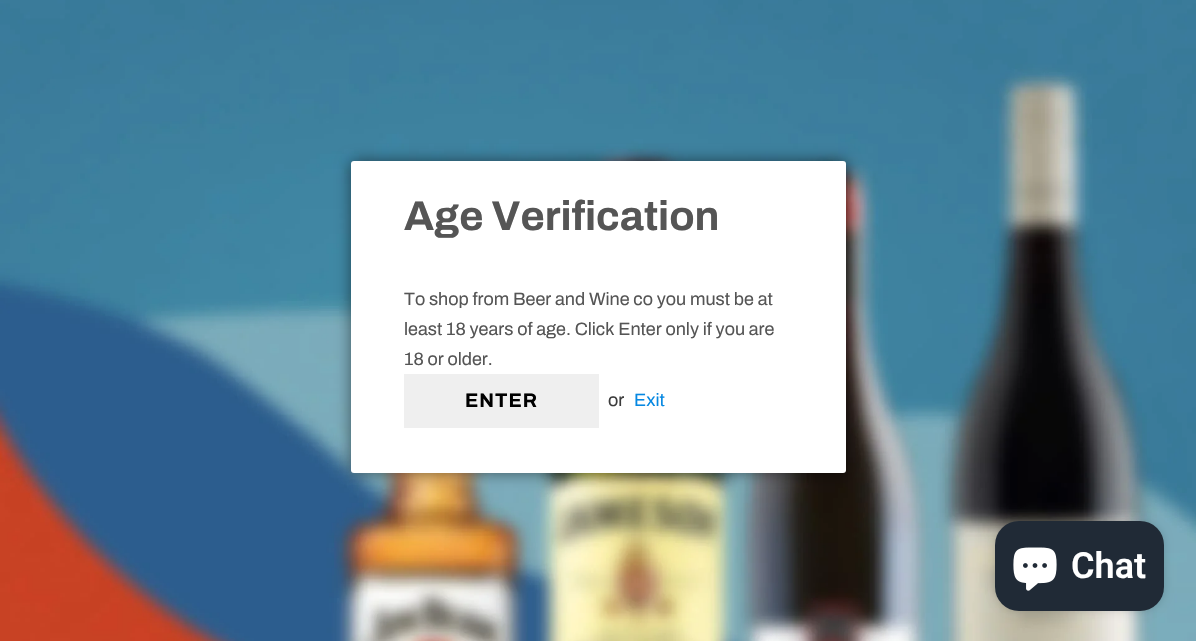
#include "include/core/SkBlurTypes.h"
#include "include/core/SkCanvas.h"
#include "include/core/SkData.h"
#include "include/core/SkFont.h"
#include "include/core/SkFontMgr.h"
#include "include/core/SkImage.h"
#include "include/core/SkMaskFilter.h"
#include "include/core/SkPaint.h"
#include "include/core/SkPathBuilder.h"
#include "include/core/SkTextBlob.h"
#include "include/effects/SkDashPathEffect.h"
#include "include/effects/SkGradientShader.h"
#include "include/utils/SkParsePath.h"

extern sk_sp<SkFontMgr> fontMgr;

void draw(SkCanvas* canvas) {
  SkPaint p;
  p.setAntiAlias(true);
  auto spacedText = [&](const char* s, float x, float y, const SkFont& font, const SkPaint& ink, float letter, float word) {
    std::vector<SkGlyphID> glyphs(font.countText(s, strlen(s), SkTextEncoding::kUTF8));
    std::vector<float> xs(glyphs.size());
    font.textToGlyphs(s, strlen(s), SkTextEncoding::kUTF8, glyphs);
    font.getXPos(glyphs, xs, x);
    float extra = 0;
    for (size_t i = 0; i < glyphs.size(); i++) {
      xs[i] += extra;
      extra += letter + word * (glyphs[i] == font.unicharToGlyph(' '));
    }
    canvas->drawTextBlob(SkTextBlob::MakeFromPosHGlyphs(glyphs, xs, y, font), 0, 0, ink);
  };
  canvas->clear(SK_ColorWHITE);
  canvas->drawImageRect(SkImages::DeferredFromEncodedData(SkData::MakeFromFileName("images/1.png")), SkRect::MakeLTRB(0, 0, 1196, 641), SkSamplingOptions());
  p.setColor(SkColorSetARGB(128, 0, 0, 0));
  p.setMaskFilter(SkMaskFilter::MakeBlur(kNormal_SkBlurStyle, 7.5f));
  canvas->drawRoundRect(SkRect::MakeLTRB(351, 161, 846, 473), 3, 3, p);
  p.setMaskFilter(nullptr);
  p.setColor(SK_ColorWHITE);
  canvas->drawRoundRect(SkRect::MakeLTRB(351, 161, 846, 473), 3, 3, p);
  p.setColor(SkColorSetRGB(239, 239, 239));
  canvas->drawRect(SkRect::MakeLTRB(404, 374, 599, 428), p);
  p.setColor(SkColorSetARGB(38, 0, 0, 0));
  p.setMaskFilter(SkMaskFilter::MakeBlur(kNormal_SkBlurStyle, 4));
  canvas->drawRoundRect(SkRect::MakeLTRB(995, 521, 1164, 611), 24, 24, p);
  p.setMaskFilter(nullptr);
  p.setColor(SkColorSetRGB(32, 42, 54));
  canvas->drawRoundRect(SkRect::MakeLTRB(995, 521, 1164, 611), 24, 24, p);
  canvas->drawImageRect(SkImages::DeferredFromEncodedData(SkData::MakeFromFileName("images/2.png")), SkRect::MakeLTRB(1013, 547, 1057, 591), SkSamplingOptions());
  SkFont font1(fontMgr->matchFamilyStyle("Archivo", SkFontStyle::Bold()), 41.5f);
  font1.setSubpixel(true);
  p.setColor(SkColorSetRGB(85, 85, 85));
  canvas->drawString("Age Verification", 404, 230, font1, p);
  SkFont font2(fontMgr->matchFamilyStyle("Archivo", SkFontStyle::Normal()), 18);
  font2.setSubpixel(true);
  canvas->drawString("To shop from Beer and Wine co you must be at", 404, 305, font2, p);
  canvas->drawString("least 18 years of age. Click Enter only if you are", 404, 335, font2, p);
  canvas->drawString("18 or older.", 404, 365, font2, p);
  SkFont font3(fontMgr->matchFamilyStyle("Archivo", SkFontStyle::Bold()), 19.5f);
  font3.setSubpixel(true);
  p.setColor(SK_ColorBLACK);
  spacedText("ENTER", 465, 407, font3, p, 1, 0);
  p.setColor(SkColorSetRGB(60, 60, 60));
  canvas->drawString("or", 608, 406, font2, p);
  p.setColor(SkColorSetRGB(6, 136, 226));
  canvas->drawString("Exit", 634, 406, font2, p);
  SkFont font4(fontMgr->matchFamilyStyle("Roboto", SkFontStyle(600, SkFontStyle::kNormal_Width, SkFontStyle::kUpright_Slant)), 36);
  font4.setSubpixel(true);
  p.setColor(SK_ColorWHITE);
  canvas->drawString("Chat", 1071, 578, font4, p);
}
